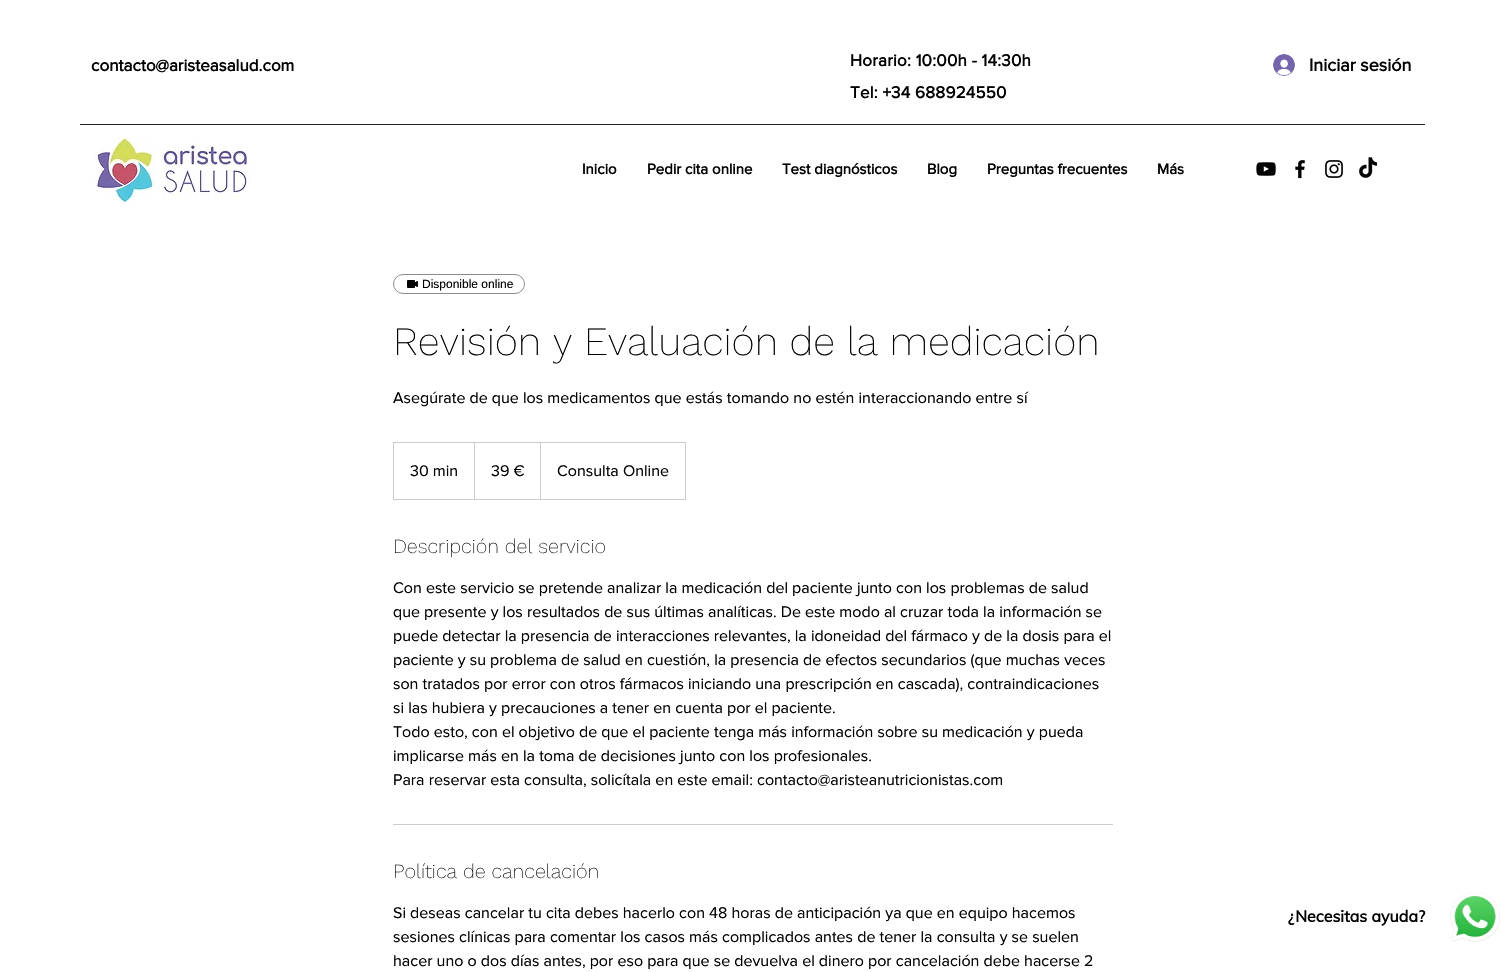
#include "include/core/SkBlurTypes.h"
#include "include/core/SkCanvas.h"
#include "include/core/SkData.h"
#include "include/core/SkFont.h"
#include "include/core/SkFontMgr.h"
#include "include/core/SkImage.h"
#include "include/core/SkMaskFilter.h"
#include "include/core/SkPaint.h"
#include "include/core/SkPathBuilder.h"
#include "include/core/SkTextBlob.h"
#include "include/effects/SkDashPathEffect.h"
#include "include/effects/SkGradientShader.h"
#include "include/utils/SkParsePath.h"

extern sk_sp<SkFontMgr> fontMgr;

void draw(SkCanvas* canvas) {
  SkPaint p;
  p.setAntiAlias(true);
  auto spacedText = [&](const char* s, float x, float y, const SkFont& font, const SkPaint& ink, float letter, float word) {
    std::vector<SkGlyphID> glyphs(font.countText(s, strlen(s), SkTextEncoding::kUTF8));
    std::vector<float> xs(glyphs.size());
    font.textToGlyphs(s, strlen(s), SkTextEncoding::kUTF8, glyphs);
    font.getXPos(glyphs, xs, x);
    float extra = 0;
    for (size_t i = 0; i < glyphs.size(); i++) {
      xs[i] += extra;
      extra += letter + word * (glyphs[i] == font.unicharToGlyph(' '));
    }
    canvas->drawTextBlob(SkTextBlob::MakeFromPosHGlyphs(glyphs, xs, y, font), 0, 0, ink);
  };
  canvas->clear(SK_ColorWHITE);
  canvas->drawImageRect(SkImages::DeferredFromEncodedData(SkData::MakeFromFileName("images/1.png")), SkRect::MakeLTRB(1273, 54, 1295, 76), SkSamplingOptions());
  p.setColor(SkColorSetRGB(38, 38, 38));
  canvas->drawRect(SkRect::MakeLTRB(80, 124, 1425, 125), p);
  canvas->drawImageRect(SkImages::DeferredFromEncodedData(SkData::MakeFromFileName("images/2.png")), SkRect::MakeLTRB(95, 134, 251, 205), SkSamplingOptions());
  canvas->drawImageRect(SkImages::DeferredFromEncodedData(SkData::MakeFromFileName("images/3.png")), SkRect::MakeLTRB(1256, 162, 1276, 176), SkSamplingOptions());
  canvas->drawImageRect(SkImages::DeferredFromEncodedData(SkData::MakeFromFileName("images/4.png")), SkRect::MakeLTRB(1295, 159, 1305, 179), SkSamplingOptions());
  canvas->drawImageRect(SkImages::DeferredFromEncodedData(SkData::MakeFromFileName("images/5.png")), SkRect::MakeLTRB(1325, 160, 1343, 178), SkSamplingOptions());
  canvas->drawImageRect(SkImages::DeferredFromEncodedData(SkData::MakeFromFileName("images/6.png")), SkRect::MakeLTRB(1358, 157, 1378, 178), SkSamplingOptions());
  p.setStyle(SkPaint::kStroke_Style);
  p.setStrokeWidth(1);
  p.setColor(SkColorSetRGB(140, 140, 140));
  canvas->drawRoundRect(SkRect::MakeLTRB(393.5f, 274.5f, 524.5f, 293.5f), 9.5f, 9.5f, p);
  canvas->drawImageRect(SkImages::DeferredFromEncodedData(SkData::MakeFromFileName("images/7.png")), SkRect::MakeLTRB(407, 280, 418, 288), SkSamplingOptions());
  p.setColor(SkColorSetRGB(204, 204, 204));
  canvas->drawRect(SkRect::MakeLTRB(393.5f, 442.5f, 685.5f, 499.5f), p);
  p.setStyle(SkPaint::kFill_Style);
  canvas->drawPath(SkPathBuilder().moveTo(474, 499).lineTo(474, 442).lineTo(475, 443).lineTo(475, 499).close().detach(), p);
  canvas->drawPath(SkPathBuilder().moveTo(540, 499).lineTo(540, 442).lineTo(541, 443).lineTo(541, 499).close().detach(), p);
  canvas->drawRect(SkRect::MakeLTRB(393, 824, 1113, 825), p);
  canvas->drawImageRect(SkImages::DeferredFromEncodedData(SkData::MakeFromFileName("images/8.png")), SkRect::MakeLTRB(1450, 892, 1500, 942), SkSamplingOptions());
  SkFont font1(fontMgr->matchFamilyStyle("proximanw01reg", SkFontStyle::Bold()), 17);
  font1.setSubpixel(true);
  p.setColor(SK_ColorBLACK);
  canvas->drawString("contacto@aristeasalud.com", 91, 71, font1, p);
  spacedText("Horario: 10:00h - 14:30h", 850, 66, font1, p, 0.2f, 0);
  SkFont font2(fontMgr->matchFamilyStyle("proximanw01reg", SkFontStyle::Bold()), 18);
  font2.setSubpixel(true);
  canvas->drawString("Iniciar sesión", 1309, 71, font2, p);
  spacedText("Tel: +34 688924550", 850, 98, font1, p, 0.2f, 0);
  SkFont font3(fontMgr->matchFamilyStyle("proximanw01reg", SkFontStyle::Bold()), 15);
  font3.setSubpixel(true);
  canvas->drawString("Inicio", 582, 174, font3, p);
  canvas->drawString("Pedir cita online", 647, 174, font3, p);
  canvas->drawString("Test diagnósticos", 782, 174, font3, p);
  canvas->drawString("Blog", 927, 174, font3, p);
  canvas->drawString("Preguntas frecuentes", 987, 174, font3, p);
  canvas->drawString("Más", 1157, 174, font3, p);
  SkFont font4(fontMgr->matchFamilyStyle("Liberation Sans", SkFontStyle::Normal()), 12);
  font4.setSubpixel(true);
  canvas->drawString("Disponible online", 422, 288, font4, p);
  SkFont font5(fontMgr->matchFamilyStyle("Work Sans", SkFontStyle(200, SkFontStyle::kNormal_Width, SkFontStyle::kUpright_Slant)), 40);
  font5.setSubpixel(true);
  canvas->drawString("Revisión y Evaluación de la medicación", 393, 355, font5, p);
  SkFont font6(fontMgr->matchFamilyStyle("proximanw01reg", SkFontStyle::Normal()), 16);
  font6.setSubpixel(true);
  canvas->drawString("Asegúrate de que los medicamentos que estás tomando no estén interaccionando entre sí", 393, 403, font6, p);
  canvas->drawString("30 min", 410, 476, font6, p);
  canvas->drawString("39 €", 491, 476, font6, p);
  canvas->drawString("Consulta Online", 557, 476, font6, p);
  SkFont font7(fontMgr->matchFamilyStyle("Work Sans", SkFontStyle(200, SkFontStyle::kNormal_Width, SkFontStyle::kUpright_Slant)), 20);
  font7.setSubpixel(true);
  canvas->drawString("Descripción del servicio", 393, 553, font7, p);
  canvas->drawString("Con este servicio se pretende analizar la medicación del paciente junto con los problemas de salud", 393, 593, font6, p);
  canvas->drawString("que presente y los resultados de sus últimas analíticas. De este modo al cruzar toda la información se", 393, 617, font6, p);
  canvas->drawString("puede detectar la presencia de interacciones relevantes, la idoneidad del fármaco y de la dosis para el", 393, 641, font6, p);
  canvas->drawString("paciente y su problema de salud en cuestión, la presencia de efectos secundarios (que muchas veces", 393, 665, font6, p);
  canvas->drawString("son tratados por error con otros fármacos iniciando una prescripción en cascada), contraindicaciones", 393, 689, font6, p);
  canvas->drawString("si las hubiera y precauciones a tener en cuenta por el paciente.", 393, 713, font6, p);
  canvas->drawString("Todo esto, con el objetivo de que el paciente tenga más información sobre su medicación y pueda", 393, 737, font6, p);
  canvas->drawString("implicarse más en la toma de decisiones junto con los profesionales.", 393, 761, font6, p);
  canvas->drawString("Para reservar esta consulta, solicítala en este email: contacto@aristeanutricionistas.com", 393, 785, font6, p);
  canvas->drawString("Política de cancelación", 393, 878, font7, p);
  canvas->drawString("Si deseas cancelar tu cita debes hacerlo con 48 horas de anticipación ya que en equipo hacemos", 393, 918, font6, p);
  canvas->drawString("sesiones clínicas para comentar los casos más complicados antes de tener la consulta y se suelen", 393, 942, font6, p);
  canvas->drawString("hacer uno o dos días antes, por eso para que se devuelva el dinero por cancelación debe hacerse 2", 393, 966, font6, p);
  SkFont font8(fontMgr->matchFamilyStyle("Muli", SkFontStyle::Bold()), 16);
  font8.setSubpixel(true);
  canvas->drawString("¿Necesitas ayuda?", 1288, 922, font8, p);
}
